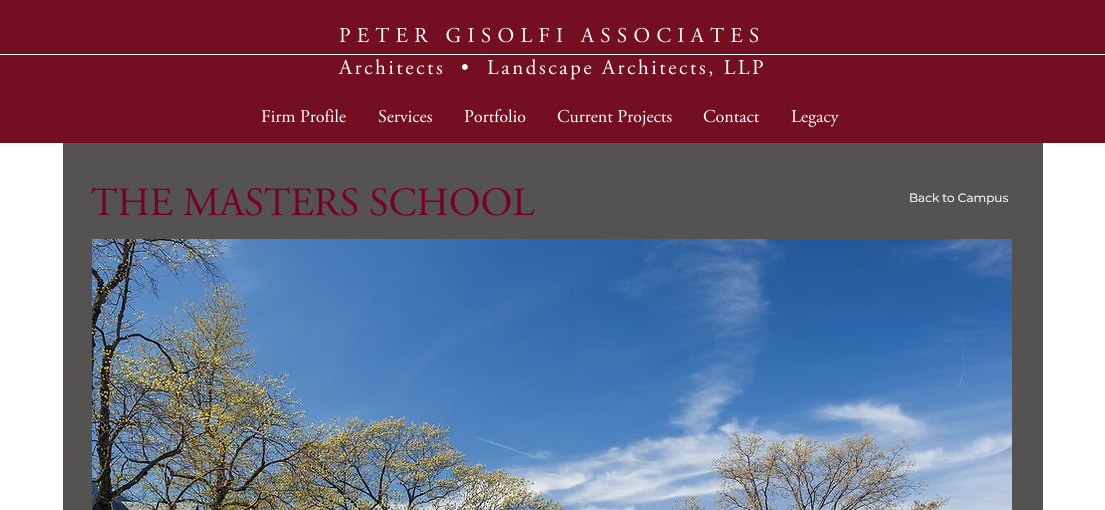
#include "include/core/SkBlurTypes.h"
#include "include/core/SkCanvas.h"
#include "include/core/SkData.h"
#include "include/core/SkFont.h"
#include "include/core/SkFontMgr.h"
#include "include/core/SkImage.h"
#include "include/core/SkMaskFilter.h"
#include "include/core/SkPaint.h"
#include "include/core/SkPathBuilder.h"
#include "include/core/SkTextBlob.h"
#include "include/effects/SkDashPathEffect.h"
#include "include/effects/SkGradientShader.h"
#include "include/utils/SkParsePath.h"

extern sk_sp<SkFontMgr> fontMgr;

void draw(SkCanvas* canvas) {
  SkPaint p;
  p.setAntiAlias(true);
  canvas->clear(SK_ColorWHITE);
  p.setColor(SkColorSetRGB(116, 15, 34));
  canvas->drawRect(SkRect::MakeLTRB(0, 0, 1105, 143), p);
  canvas->drawImageRect(SkImages::DeferredFromEncodedData(SkData::MakeFromFileName("images/1.png")), SkRect::MakeLTRB(339, 27, 758, 43), SkSamplingOptions());
  p.setColor(SK_ColorWHITE);
  canvas->drawRect(SkRect::MakeLTRB(0, 54, 1105, 55), p);
  canvas->drawImageRect(SkImages::DeferredFromEncodedData(SkData::MakeFromFileName("images/2.png")), SkRect::MakeLTRB(338, 59, 763, 80), SkSamplingOptions());
  canvas->drawImageRect(SkImages::DeferredFromEncodedData(SkData::MakeFromFileName("images/3.png")), SkRect::MakeLTRB(261, 109, 346, 123), SkSamplingOptions());
  canvas->drawImageRect(SkImages::DeferredFromEncodedData(SkData::MakeFromFileName("images/4.png")), SkRect::MakeLTRB(378, 109, 432, 123), SkSamplingOptions());
  canvas->drawImageRect(SkImages::DeferredFromEncodedData(SkData::MakeFromFileName("images/5.png")), SkRect::MakeLTRB(464, 109, 526, 123), SkSamplingOptions());
  canvas->drawImageRect(SkImages::DeferredFromEncodedData(SkData::MakeFromFileName("images/6.png")), SkRect::MakeLTRB(557, 109, 672, 127), SkSamplingOptions());
  canvas->drawImageRect(SkImages::DeferredFromEncodedData(SkData::MakeFromFileName("images/7.png")), SkRect::MakeLTRB(703, 109, 760, 123), SkSamplingOptions());
  canvas->drawImageRect(SkImages::DeferredFromEncodedData(SkData::MakeFromFileName("images/8.png")), SkRect::MakeLTRB(791, 110, 839, 127), SkSamplingOptions());
  p.setColor(SkColorSetRGB(85, 82, 82));
  canvas->drawRect(SkRect::MakeLTRB(63, 143, 1043, 510), p);
  canvas->drawImageRect(SkImages::DeferredFromEncodedData(SkData::MakeFromFileName("images/9.png")), SkRect::MakeLTRB(91, 187, 535, 216), SkSamplingOptions());
  canvas->drawImageRect(SkImages::DeferredFromEncodedData(SkData::MakeFromFileName("images/10.png")), SkRect::MakeLTRB(92, 239, 1012, 510), SkSamplingOptions());
  SkFont font1(fontMgr->matchFamilyStyle("Montserrat", SkFontStyle::Normal()), 12);
  font1.setSubpixel(true);
  p.setColor(SK_ColorWHITE);
  canvas->drawString("Back to Campus", 909, 202, font1, p);
}
